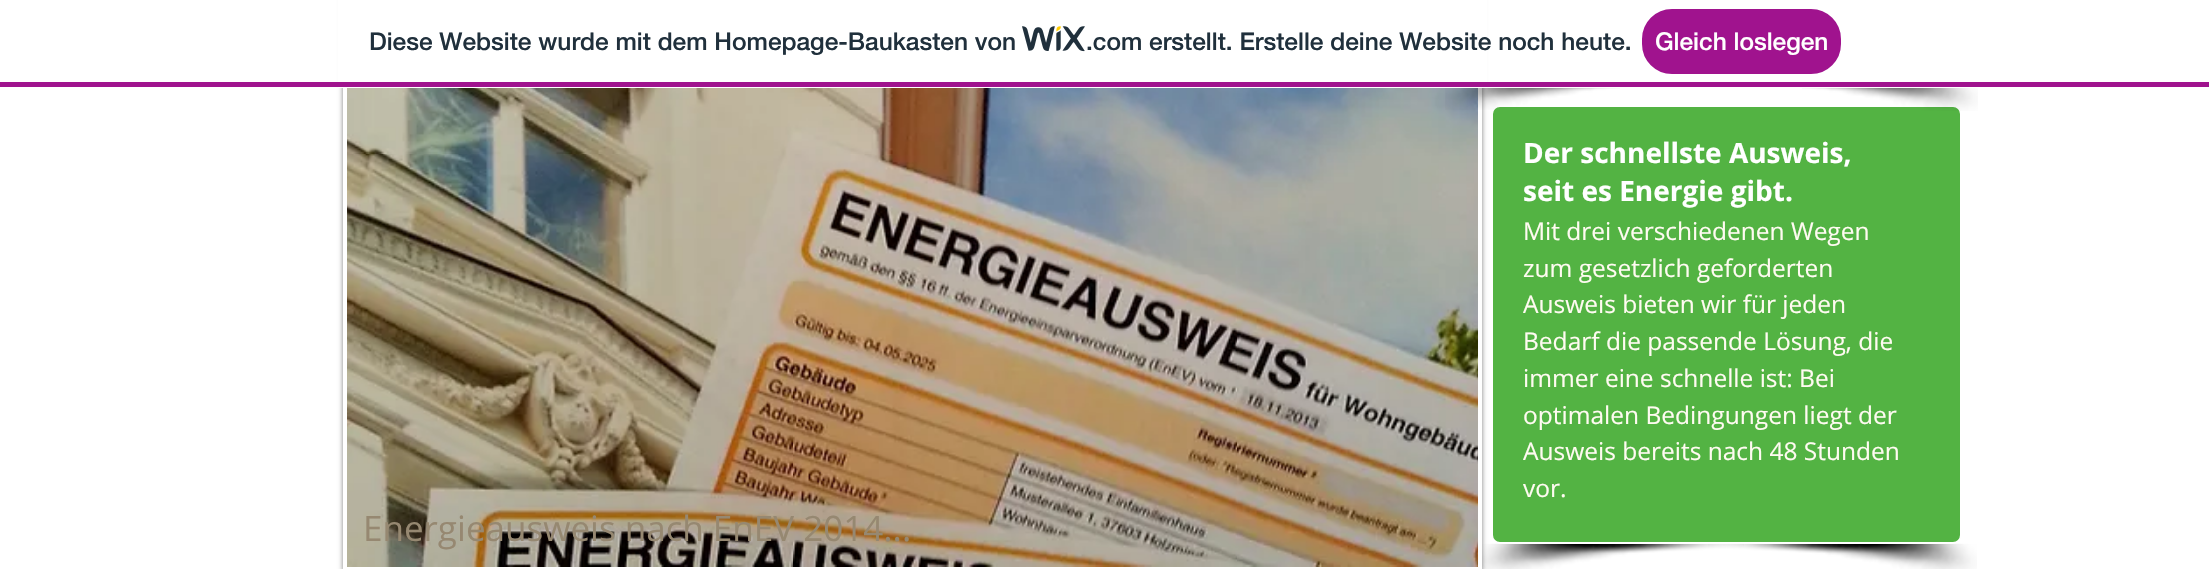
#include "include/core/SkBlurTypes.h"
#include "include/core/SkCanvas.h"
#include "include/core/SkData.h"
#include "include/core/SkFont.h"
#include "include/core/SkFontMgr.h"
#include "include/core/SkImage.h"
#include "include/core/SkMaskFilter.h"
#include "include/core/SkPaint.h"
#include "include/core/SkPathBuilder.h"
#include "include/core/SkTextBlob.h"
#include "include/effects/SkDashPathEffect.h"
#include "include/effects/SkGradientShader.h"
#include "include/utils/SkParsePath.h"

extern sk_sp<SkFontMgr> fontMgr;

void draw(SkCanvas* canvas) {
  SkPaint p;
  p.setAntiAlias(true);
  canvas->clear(SK_ColorWHITE);
  canvas->drawImageRect(SkImages::DeferredFromEncodedData(SkData::MakeFromFileName("images/4.png")), SkRect::MakeLTRB(1482, 543, 1744, 569), SkSamplingOptions());
  p.setColor(SkColorSetARGB(128, 0, 0, 0));
  p.setMaskFilter(SkMaskFilter::MakeBlur(kNormal_SkBlurStyle, 2.5f));
  canvas->drawRect(SkRect::MakeLTRB(343, -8, 1482, 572), p);
  p.setMaskFilter(nullptr);
  canvas->drawImageRect(SkImages::DeferredFromEncodedData(SkData::MakeFromFileName("images/6.png")), SkRect::MakeLTRB(347, 88, 1478, 567), SkSamplingOptions());
  p.setStyle(SkPaint::kStroke_Style);
  p.setStrokeWidth(4);
  p.setColor(SK_ColorWHITE);
  canvas->drawRect(SkRect::MakeLTRB(345, -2, 1480, 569), p);
  p.setStyle(SkPaint::kFill_Style);
  canvas->drawRect(SkRect::MakeLTRB(338, 0, 1487, 88), p);
  p.setColor(SkColorSetRGB(160, 19, 142));
  canvas->drawRect(SkRect::MakeLTRB(0, 82, 2209, 87), p);
  canvas->drawImageRect(SkImages::DeferredFromEncodedData(SkData::MakeFromFileName("images/1.png")), SkRect::MakeLTRB(1022, 26, 1085, 52), SkSamplingOptions());
  canvas->drawRoundRect(SkRect::MakeLTRB(1643, 10, 1840, 73), 29, 29, p);
  p.setStyle(SkPaint::kStroke_Style);
  p.setStrokeWidth(2);
  canvas->drawRoundRect(SkRect::MakeLTRB(1643, 10, 1840, 73), 29, 29, p);
  canvas->drawImageRect(SkImages::DeferredFromEncodedData(SkData::MakeFromFileName("images/5.png")), SkRect::MakeLTRB(1708, 543, 1977, 569), SkSamplingOptions());
  p.setStyle(SkPaint::kFill_Style);
  p.setColor(SkColorSetRGB(83, 179, 67));
  canvas->drawRoundRect(SkRect::MakeLTRB(1492, 106, 1961, 543), 8, 8, p);
  p.setStyle(SkPaint::kStroke_Style);
  p.setColor(SK_ColorWHITE);
  canvas->drawRoundRect(SkRect::MakeLTRB(1492, 106, 1961, 543), 8, 8, p);
  canvas->drawImageRect(SkImages::DeferredFromEncodedData(SkData::MakeFromFileName("images/2.png")), SkRect::MakeLTRB(1445, 88, 1620, 110), SkSamplingOptions());
  canvas->drawImageRect(SkImages::DeferredFromEncodedData(SkData::MakeFromFileName("images/3.png")), SkRect::MakeLTRB(1802, 88, 1978, 111), SkSamplingOptions());
  SkFont font1(fontMgr->matchFamilyStyle("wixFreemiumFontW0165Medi", SkFontStyle(500, SkFontStyle::kNormal_Width, SkFontStyle::kUpright_Slant)), 24.5f);
  font1.setSubpixel(true);
  p.setStyle(SkPaint::kFill_Style);
  p.setColor(SkColorSetRGB(32, 48, 60));
  canvas->drawString("Diese Website wurde mit dem Homepage-Baukasten von", 369, 50, font1, p);
  canvas->drawString(".com erstellt. Erstelle deine Website noch heute.", 1086, 50, font1, p);
  p.setColor(SK_ColorWHITE);
  canvas->drawString("Gleich loslegen", 1655, 50, font1, p);
  SkFont font2(fontMgr->matchFamilyStyle("Open Sans", SkFontStyle::Bold()), 28);
  font2.setSubpixel(true);
  canvas->drawString("Der schnellste Ausweis,", 1523, 163, font2, p);
  canvas->drawString("seit es Energie gibt.", 1523, 201, font2, p);
  SkFont font3(fontMgr->matchFamilyStyle("Open Sans", SkFontStyle::Normal()), 24.5f);
  font3.setSubpixel(true);
  p.setColor(SkColorSetRGB(255, 251, 241));
  canvas->drawString("Mit drei verschiedenen Wegen", 1523, 240, font3, p);
  canvas->drawString("zum gesetzlich geforderten", 1523, 277, font3, p);
  canvas->drawString("Ausweis bieten wir für jeden", 1523, 313, font3, p);
  canvas->drawString("Bedarf die passende Lösung, die", 1523, 350, font3, p);
  canvas->drawString("immer eine schnelle ist: Bei", 1523, 387, font3, p);
  canvas->drawString("optimalen Bedingungen liegt der", 1523, 424, font3, p);
  canvas->drawString("Ausweis bereits nach 48 Stunden", 1523, 460, font3, p);
  canvas->drawString("vor.", 1523, 497, font3, p);
  SkFont font4(fontMgr->matchFamilyStyle("Open Sans", SkFontStyle::Normal()), 35);
  font4.setSubpixel(true);
  p.setColor(SkColorSetRGB(150, 136, 113));
  canvas->drawString("Energieausweis nach EnEV 2014...", 363, 541, font4, p);
}
